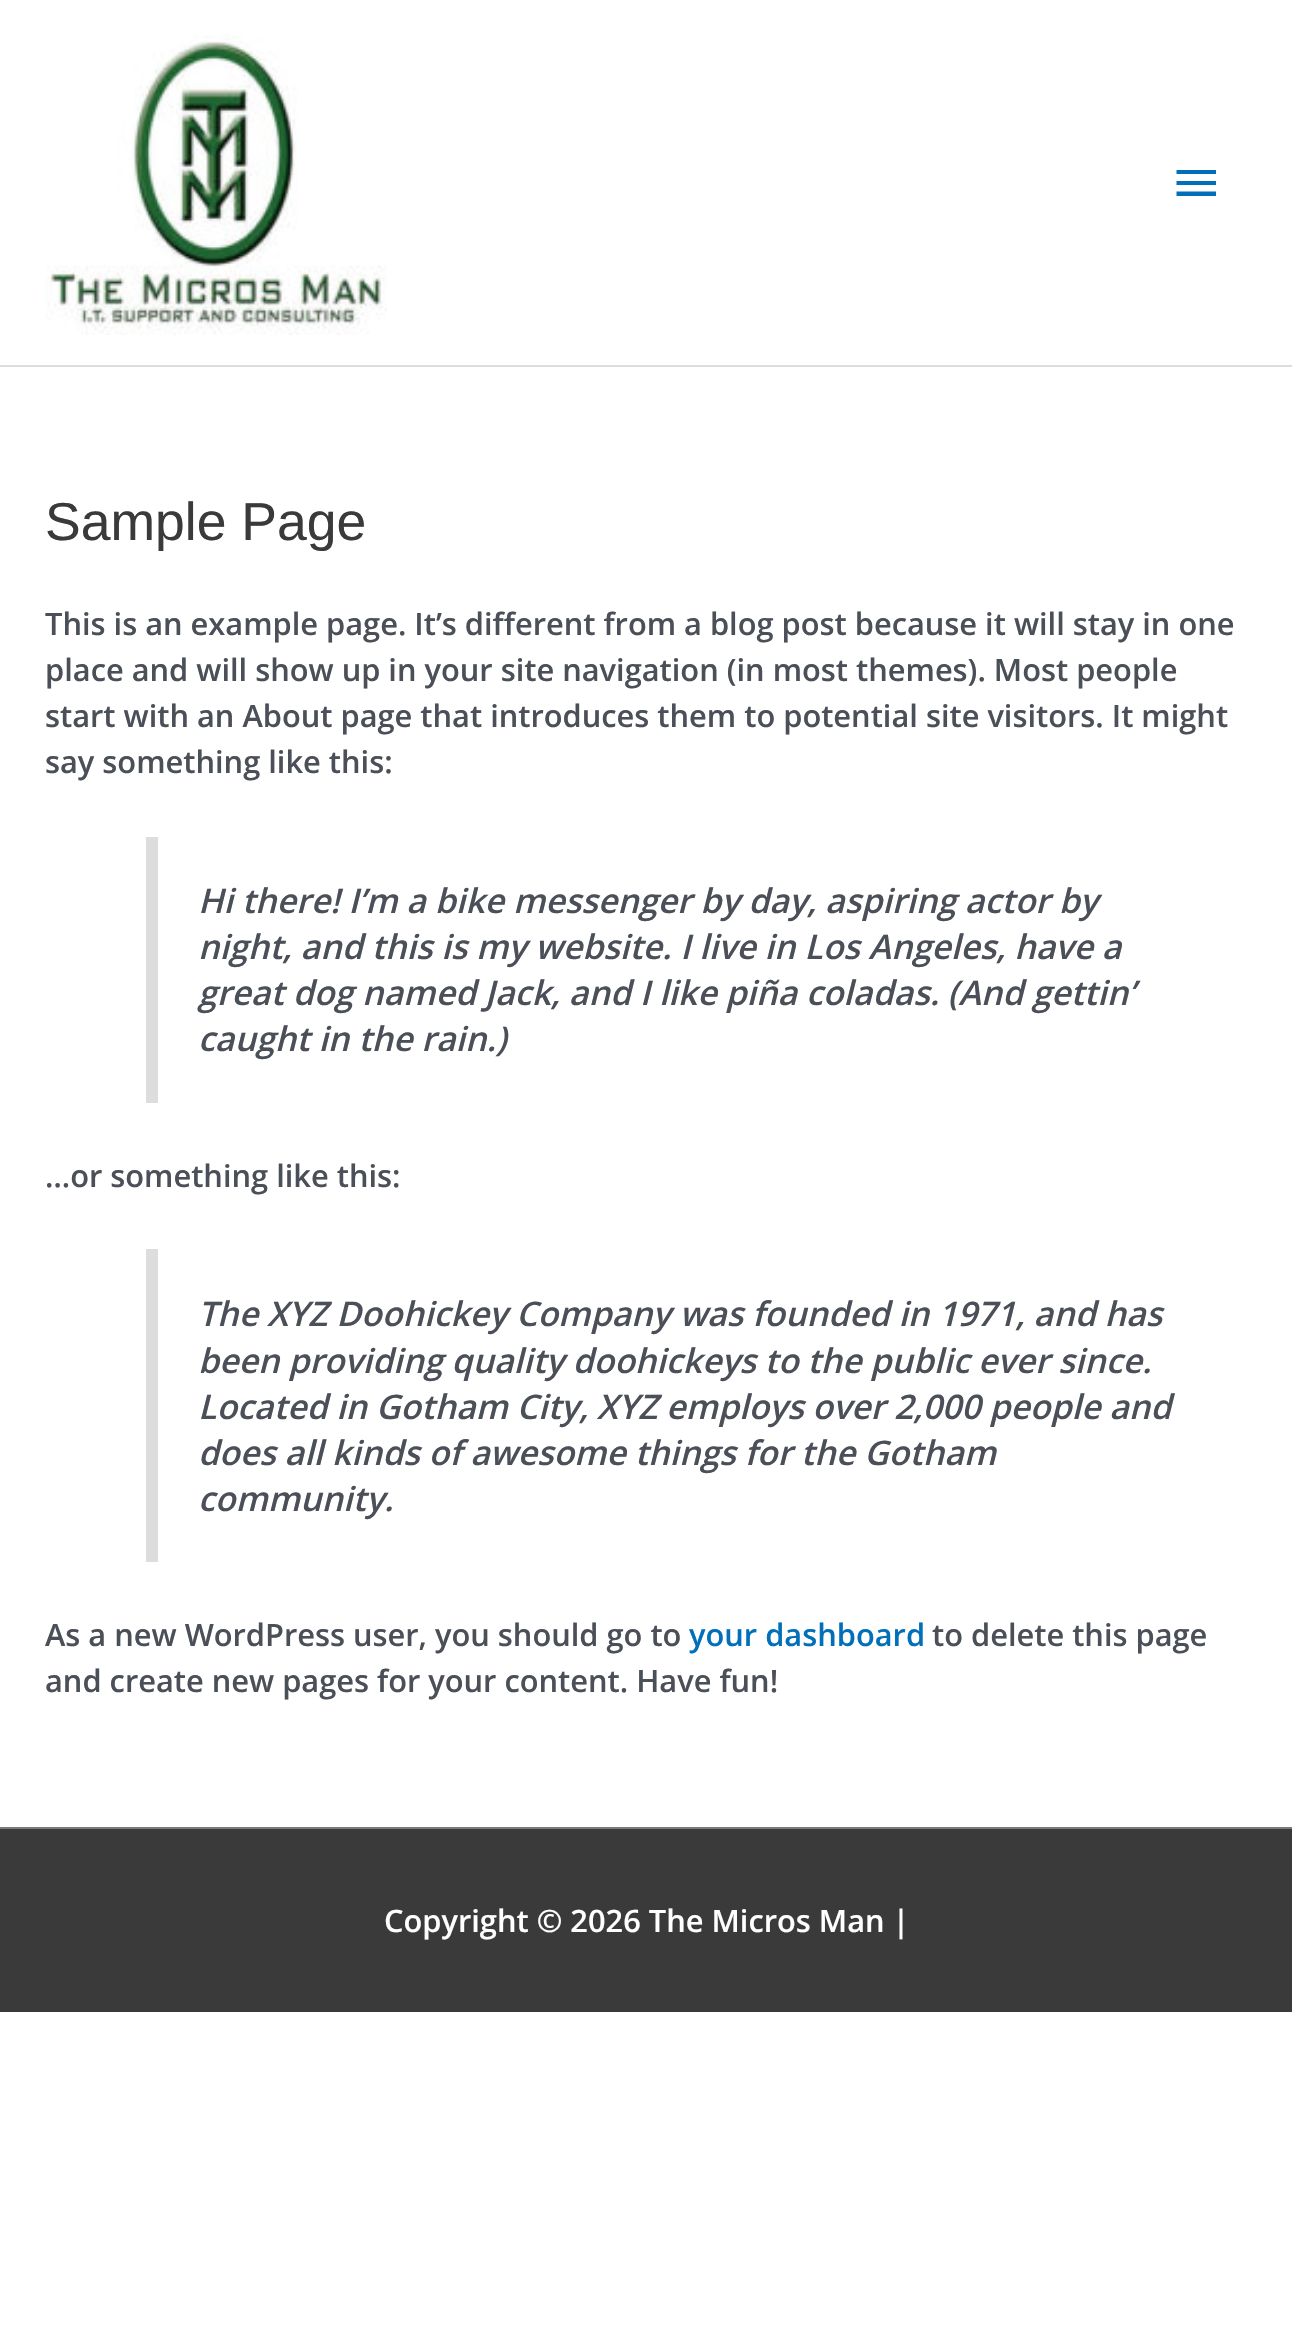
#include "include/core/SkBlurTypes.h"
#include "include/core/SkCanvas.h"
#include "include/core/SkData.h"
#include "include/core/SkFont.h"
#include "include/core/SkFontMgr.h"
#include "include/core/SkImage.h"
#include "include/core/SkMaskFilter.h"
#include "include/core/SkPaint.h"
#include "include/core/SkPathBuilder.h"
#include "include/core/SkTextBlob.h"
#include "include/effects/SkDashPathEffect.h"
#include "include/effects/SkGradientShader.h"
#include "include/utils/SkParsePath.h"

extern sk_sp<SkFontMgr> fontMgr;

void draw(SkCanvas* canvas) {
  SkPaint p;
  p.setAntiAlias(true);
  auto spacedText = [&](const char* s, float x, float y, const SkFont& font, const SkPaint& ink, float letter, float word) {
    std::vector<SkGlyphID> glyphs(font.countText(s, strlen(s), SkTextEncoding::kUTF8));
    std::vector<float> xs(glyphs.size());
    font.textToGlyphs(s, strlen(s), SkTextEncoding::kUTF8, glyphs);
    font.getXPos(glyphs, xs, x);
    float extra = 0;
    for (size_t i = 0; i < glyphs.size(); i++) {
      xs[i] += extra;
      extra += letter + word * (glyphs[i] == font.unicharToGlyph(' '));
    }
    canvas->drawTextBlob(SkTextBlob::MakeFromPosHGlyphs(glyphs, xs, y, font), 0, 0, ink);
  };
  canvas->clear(SK_ColorWHITE);
  p.setColor(SkColorSetRGB(221, 221, 221));
  canvas->drawRect(SkRect::MakeLTRB(0, 365, 1292, 367), p);
  canvas->drawImageRect(SkImages::DeferredFromEncodedData(SkData::MakeFromFileName("images/1.png")), SkRect::MakeLTRB(45, 34, 387, 335), SkSamplingOptions());
  p.setColor(SkColorSetRGB(1, 112, 185));
  canvas->drawPath(SkPathBuilder().moveTo(1176.5f, 170).lineTo(1216, 170).lineTo(1216, 174).lineTo(1176.5f, 174).close().moveTo(1176.5f, 185).lineTo(1176.5f, 181).lineTo(1216, 181).lineTo(1216, 185).close().moveTo(1176.5f, 196).lineTo(1176.5f, 191.5f).lineTo(1216, 191.5f).lineTo(1216, 196).close().detach(), p);
  p.setColor(SkColorSetRGB(221, 221, 221));
  canvas->drawRect(SkRect::MakeLTRB(146, 837, 158, 1103), p);
  canvas->drawRect(SkRect::MakeLTRB(146, 1249, 158, 1562), p);
  p.setColor(SkColorSetRGB(122, 122, 122));
  canvas->drawRect(SkRect::MakeLTRB(0, 1827, 1292, 1829), p);
  p.setColor(SkColorSetRGB(58, 58, 58));
  canvas->drawRect(SkRect::MakeLTRB(0, 1829, 1292, 2012), p);
  SkFont font1(fontMgr->matchFamilyStyle("Liberation Sans", SkFontStyle::Normal()), 53.5f);
  font1.setSubpixel(true);
  canvas->drawString("Sample Page", 45, 540, font1, p);
  SkFont font2(fontMgr->matchFamilyStyle("Open Sans", SkFontStyle(600, SkFontStyle::kNormal_Width, SkFontStyle::kUpright_Slant)), 30.8f);
  font2.setSubpixel(true);
  p.setColor(SkColorSetRGB(75, 79, 88));
  canvas->drawString("This is an example page. It’s different from a blog post because it will stay in one", 45, 635, font2, p);
  canvas->drawString("place and will show up in your site navigation (in most themes). Most people", 45, 681, font2, p);
  canvas->drawString("start with an About page that introduces them to potential site visitors. It might", 45, 727, font2, p);
  canvas->drawString("say something like this:", 45, 773, font2, p);
  SkFont font3(fontMgr->matchFamilyStyle("Open Sans", SkFontStyle(600, SkFontStyle::kNormal_Width, SkFontStyle::kItalic_Slant)), 33.85f);
  font3.setSubpixel(true);
  canvas->drawString("Hi there! I’m a bike messenger by day, aspiring actor by", 198, 913, font3, p);
  canvas->drawString("night, and this is my website. I live in Los Angeles, have a", 198, 959, font3, p);
  canvas->drawString("great dog named Jack, and I like piña coladas. (And gettin’", 198, 1005, font3, p);
  canvas->drawString("caught in the rain.)", 198, 1051, font3, p);
  canvas->drawString("…or something like this:", 45, 1187, font2, p);
  canvas->drawString("The XYZ Doohickey Company was founded in 1971, and has", 198, 1326, font3, p);
  spacedText("been providing quality doohickeys to the public ever since.", 198, 1373, font3, p, 0, -0.25f);
  spacedText("Located in Gotham City, XYZ employs over 2,000 people and", 198, 1419, font3, p, 0, -0.1f);
  canvas->drawString("does all kinds of awesome things for the Gotham", 198, 1465, font3, p);
  canvas->drawString("community.", 198, 1511, font3, p);
  canvas->drawString("As a new WordPress user, you should go to", 45, 1646, font2, p);
  p.setColor(SkColorSetRGB(1, 112, 185));
  canvas->drawString("your dashboard", 689, 1646, font2, p);
  p.setColor(SkColorSetRGB(75, 79, 88));
  canvas->drawString("to delete this page", 932, 1646, font2, p);
  canvas->drawString("and create new pages for your content. Have fun!", 45, 1692, font2, p);
  p.setColor(SK_ColorWHITE);
  canvas->drawString("Copyright © 2026 The Micros Man |", 384, 1932, font2, p);
}
